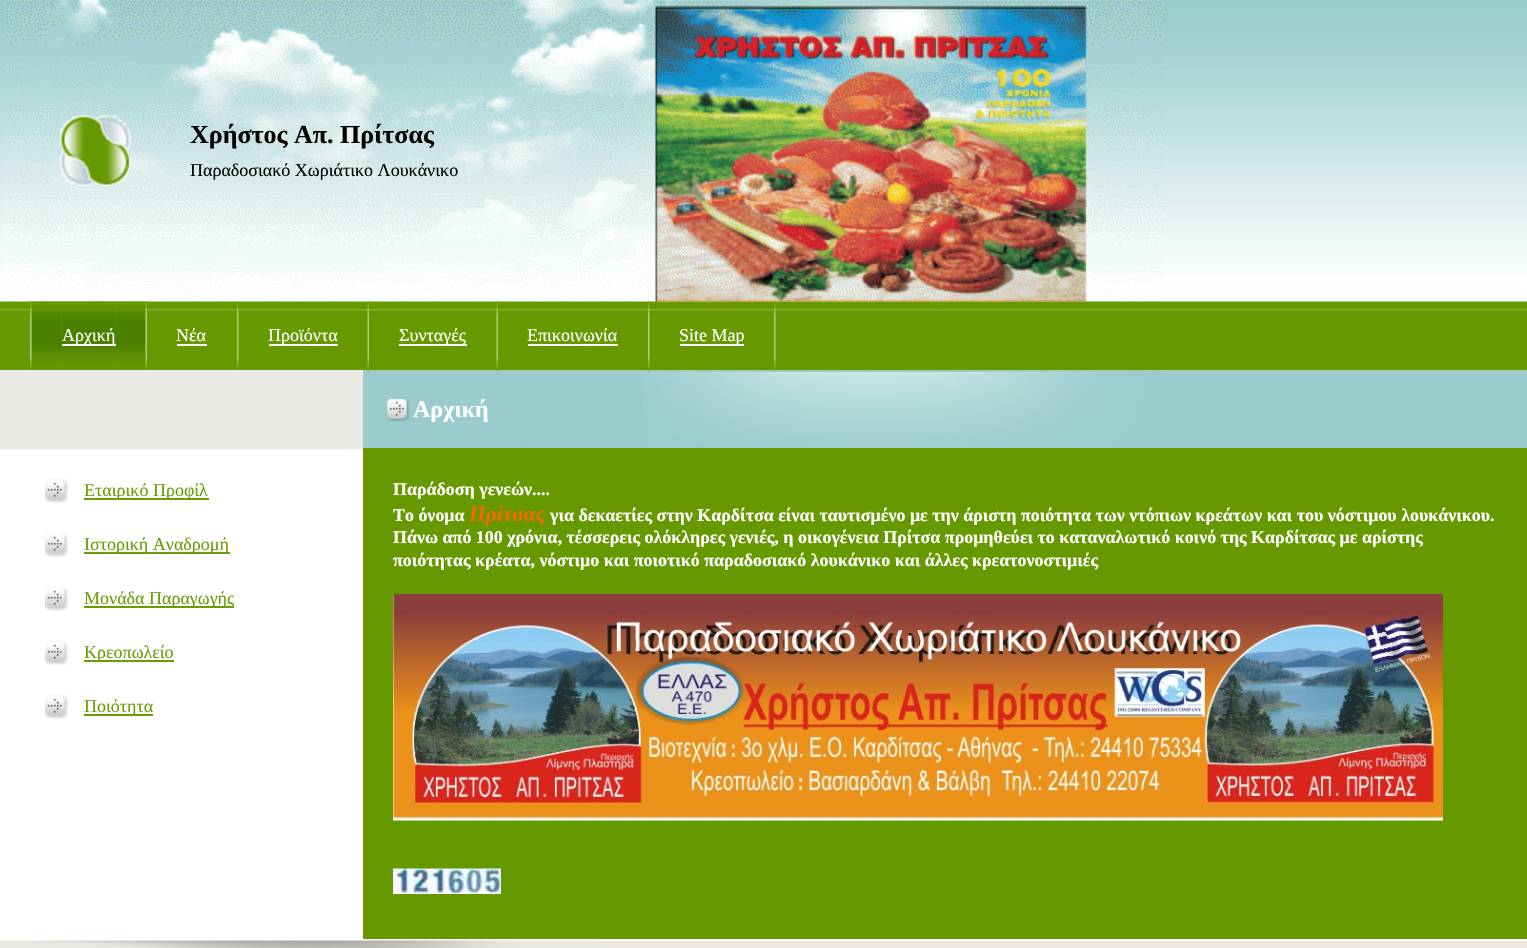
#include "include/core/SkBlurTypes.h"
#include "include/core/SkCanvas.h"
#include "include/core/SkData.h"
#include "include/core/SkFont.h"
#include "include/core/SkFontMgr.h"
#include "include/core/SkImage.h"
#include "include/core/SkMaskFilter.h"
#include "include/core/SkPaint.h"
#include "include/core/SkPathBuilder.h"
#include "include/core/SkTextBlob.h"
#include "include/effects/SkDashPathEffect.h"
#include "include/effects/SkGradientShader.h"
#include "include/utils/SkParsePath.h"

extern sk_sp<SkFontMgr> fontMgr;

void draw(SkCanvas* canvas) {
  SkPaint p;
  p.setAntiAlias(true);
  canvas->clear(SK_ColorWHITE);
  canvas->drawImageRect(SkImages::DeferredFromEncodedData(SkData::MakeFromFileName("images/1.png")), SkRect::MakeLTRB(0, 0, 1527, 277), SkSamplingOptions());
  canvas->drawImageRect(SkImages::DeferredFromEncodedData(SkData::MakeFromFileName("images/2.png")), SkRect::MakeLTRB(4, 0, 1165, 302), SkSamplingOptions());
  canvas->drawImageRect(SkImages::DeferredFromEncodedData(SkData::MakeFromFileName("images/3.png")), SkRect::MakeLTRB(60, 115, 131, 186), SkSamplingOptions());
  canvas->drawImageRect(SkImages::DeferredFromEncodedData(SkData::MakeFromFileName("images/4.png")), SkRect::MakeLTRB(0, 301, 1527, 371), SkSamplingOptions());
  canvas->drawImageRect(SkImages::DeferredFromEncodedData(SkData::MakeFromFileName("images/6.png")), SkRect::MakeLTRB(31, 301, 62, 370), SkSamplingOptions());
  canvas->drawImageRect(SkImages::DeferredFromEncodedData(SkData::MakeFromFileName("images/5.png")), SkRect::MakeLTRB(30, 301, 32, 370), SkSamplingOptions());
  canvas->drawImageRect(SkImages::DeferredFromEncodedData(SkData::MakeFromFileName("images/8.png")), SkRect::MakeLTRB(61, 301, 116, 370), SkSamplingOptions());
  canvas->drawImageRect(SkImages::DeferredFromEncodedData(SkData::MakeFromFileName("images/7.png")), SkRect::MakeLTRB(115, 301, 146, 370), SkSamplingOptions());
  p.setColor(SK_ColorWHITE);
  canvas->drawRect(SkRect::MakeLTRB(62, 344, 116, 346), p);
  canvas->drawImageRect(SkImages::DeferredFromEncodedData(SkData::MakeFromFileName("images/9.png")), SkRect::MakeLTRB(145, 301, 147, 370), SkSamplingOptions());
  canvas->drawRect(SkRect::MakeLTRB(177, 344, 207, 346), p);
  canvas->drawImageRect(SkImages::DeferredFromEncodedData(SkData::MakeFromFileName("images/10.png")), SkRect::MakeLTRB(237, 301, 239, 370), SkSamplingOptions());
  canvas->drawRect(SkRect::MakeLTRB(269, 344, 338, 346), p);
  canvas->drawImageRect(SkImages::DeferredFromEncodedData(SkData::MakeFromFileName("images/14.png")), SkRect::MakeLTRB(363, 370, 1527, 448), SkSamplingOptions());
  canvas->drawImageRect(SkImages::DeferredFromEncodedData(SkData::MakeFromFileName("images/11.png")), SkRect::MakeLTRB(367, 301, 369, 371), SkSamplingOptions());
  canvas->drawRect(SkRect::MakeLTRB(399, 344, 467, 346), p);
  canvas->drawImageRect(SkImages::DeferredFromEncodedData(SkData::MakeFromFileName("images/11.png")), SkRect::MakeLTRB(496, 301, 498, 371), SkSamplingOptions());
  canvas->drawRect(SkRect::MakeLTRB(528, 344, 618, 346), p);
  canvas->drawImageRect(SkImages::DeferredFromEncodedData(SkData::MakeFromFileName("images/12.png")), SkRect::MakeLTRB(648, 301, 650, 371), SkSamplingOptions());
  canvas->drawRect(SkRect::MakeLTRB(680, 344, 744, 346), p);
  canvas->drawImageRect(SkImages::DeferredFromEncodedData(SkData::MakeFromFileName("images/13.png")), SkRect::MakeLTRB(774, 301, 776, 371), SkSamplingOptions());
  p.setColor(SkColorSetRGB(235, 233, 228));
  canvas->drawRect(SkRect::MakeLTRB(0, 370, 363, 449), p);
  canvas->drawImageRect(SkImages::DeferredFromEncodedData(SkData::MakeFromFileName("images/15.png")), SkRect::MakeLTRB(363, 372, 1166, 448), SkSamplingOptions());
  canvas->drawImageRect(SkImages::DeferredFromEncodedData(SkData::MakeFromFileName("images/16.png")), SkRect::MakeLTRB(385, 397, 410, 422), SkSamplingOptions());
  canvas->drawImageRect(SkImages::DeferredFromEncodedData(SkData::MakeFromFileName("images/17.png")), SkRect::MakeLTRB(45, 478, 69, 503), SkSamplingOptions());
  p.setColor(SkColorSetRGB(103, 158, 2));
  canvas->drawRect(SkRect::MakeLTRB(84, 498, 209, 500), p);
  canvas->drawImageRect(SkImages::DeferredFromEncodedData(SkData::MakeFromFileName("images/17.png")), SkRect::MakeLTRB(45, 532, 69, 557), SkSamplingOptions());
  canvas->drawRect(SkRect::MakeLTRB(84, 552, 230, 554), p);
  canvas->drawImageRect(SkImages::DeferredFromEncodedData(SkData::MakeFromFileName("images/17.png")), SkRect::MakeLTRB(45, 586, 69, 611), SkSamplingOptions());
  canvas->drawRect(SkRect::MakeLTRB(84, 606, 234, 608), p);
  canvas->drawImageRect(SkImages::DeferredFromEncodedData(SkData::MakeFromFileName("images/17.png")), SkRect::MakeLTRB(45, 640, 69, 665), SkSamplingOptions());
  canvas->drawRect(SkRect::MakeLTRB(84, 660, 174, 662), p);
  canvas->drawImageRect(SkImages::DeferredFromEncodedData(SkData::MakeFromFileName("images/17.png")), SkRect::MakeLTRB(45, 694, 69, 719), SkSamplingOptions());
  canvas->drawRect(SkRect::MakeLTRB(84, 714, 153, 716), p);
  p.setColor(SkColorSetRGB(102, 153, 0));
  canvas->drawRect(SkRect::MakeLTRB(363, 448, 1527, 939), p);
  canvas->drawImageRect(SkImages::DeferredFromEncodedData(SkData::MakeFromFileName("images/18.png")), SkRect::MakeLTRB(393, 594, 1443, 821), SkSamplingOptions());
  canvas->drawImageRect(SkImages::DeferredFromEncodedData(SkData::MakeFromFileName("images/19.png")), SkRect::MakeLTRB(393, 868, 501, 894), SkSamplingOptions());
  p.setColor(SkColorSetRGB(236, 233, 228));
  canvas->drawRect(SkRect::MakeLTRB(598, 941, 1527, 948), p);
  canvas->drawImageRect(SkImages::DeferredFromEncodedData(SkData::MakeFromFileName("images/20.png")), SkRect::MakeLTRB(0, 940, 599, 948), SkSamplingOptions());
  SkFont font1(fontMgr->matchFamilyStyle("Liberation Serif", SkFontStyle::Bold()), 26);
  font1.setSubpixel(true);
  p.setColor(SK_ColorBLACK);
  canvas->drawString("Χρήστος Απ. Πρίτσας", 190, 143, font1, p);
  SkFont font2(fontMgr->matchFamilyStyle("Liberation Serif", SkFontStyle::Normal()), 18);
  font2.setSubpixel(true);
  canvas->drawString("Παραδοσιακό Χωριάτικο Λουκάνικο", 190, 176, font2, p);
  p.setColor(SK_ColorWHITE);
  canvas->drawString("Αρχική", 62, 341, font2, p);
  canvas->drawString("Νέα", 176, 341, font2, p);
  canvas->drawString("Προϊόντα", 268, 341, font2, p);
  canvas->drawString("Συνταγές", 399, 341, font2, p);
  canvas->drawString("Επικοινωνία", 527, 341, font2, p);
  canvas->drawString("Site Map", 679, 341, font2, p);
  SkFont font3(fontMgr->matchFamilyStyle("Liberation Serif", SkFontStyle::Bold()), 24);
  font3.setSubpixel(true);
  canvas->drawString("Αρχική", 413, 417, font3, p);
  p.setColor(SkColorSetRGB(103, 158, 2));
  canvas->drawString("Εταιρικό Προφίλ", 84, 496, font2, p);
  canvas->drawString("Ιστορική Αναδρομή", 84, 550, font2, p);
  canvas->drawString("Μονάδα Παραγωγής", 84, 604, font2, p);
  canvas->drawString("Κρεοπωλείο", 84, 658, font2, p);
  canvas->drawString("Ποιότητα", 84, 712, font2, p);
  SkFont font4(fontMgr->matchFamilyStyle("Liberation Serif", SkFontStyle::Bold()), 17.93f);
  font4.setSubpixel(true);
  p.setColor(SK_ColorWHITE);
  canvas->drawString("Παράδοση γενεών....", 393, 495, font4, p);
  canvas->drawString("Το όνομα", 393, 521, font4, p);
  SkFont font5(fontMgr->matchFamilyStyle("Liberation Serif", SkFontStyle::BoldItalic()), 21.5f);
  font5.setSubpixel(true);
  p.setColor(SkColorSetRGB(255, 102, 0));
  canvas->drawString("Πρίτσας", 469, 521, font5, p);
  p.setColor(SK_ColorWHITE);
  canvas->drawString("για δεκαετίες στην Καρδίτσα είναι ταυτισμένο με την άριστη ποιότητα των ντόπιων κρεάτων και του νόστιμου λουκάνικου.", 550, 521, font4, p);
  canvas->drawString("Πάνω από 100 χρόνια, τέσσερεις ολόκληρες γενιές, η οικογένεια Πρίτσα προμηθεύει το καταναλωτικό κοινό της Καρδίτσας με αρίστης", 393, 543, font4, p);
  canvas->drawString("ποιότητας κρέατα, νόστιμο και ποιοτικό παραδοσιακό λουκάνικο και άλλες κρεατονοστιμιές", 393, 566, font4, p);
}
